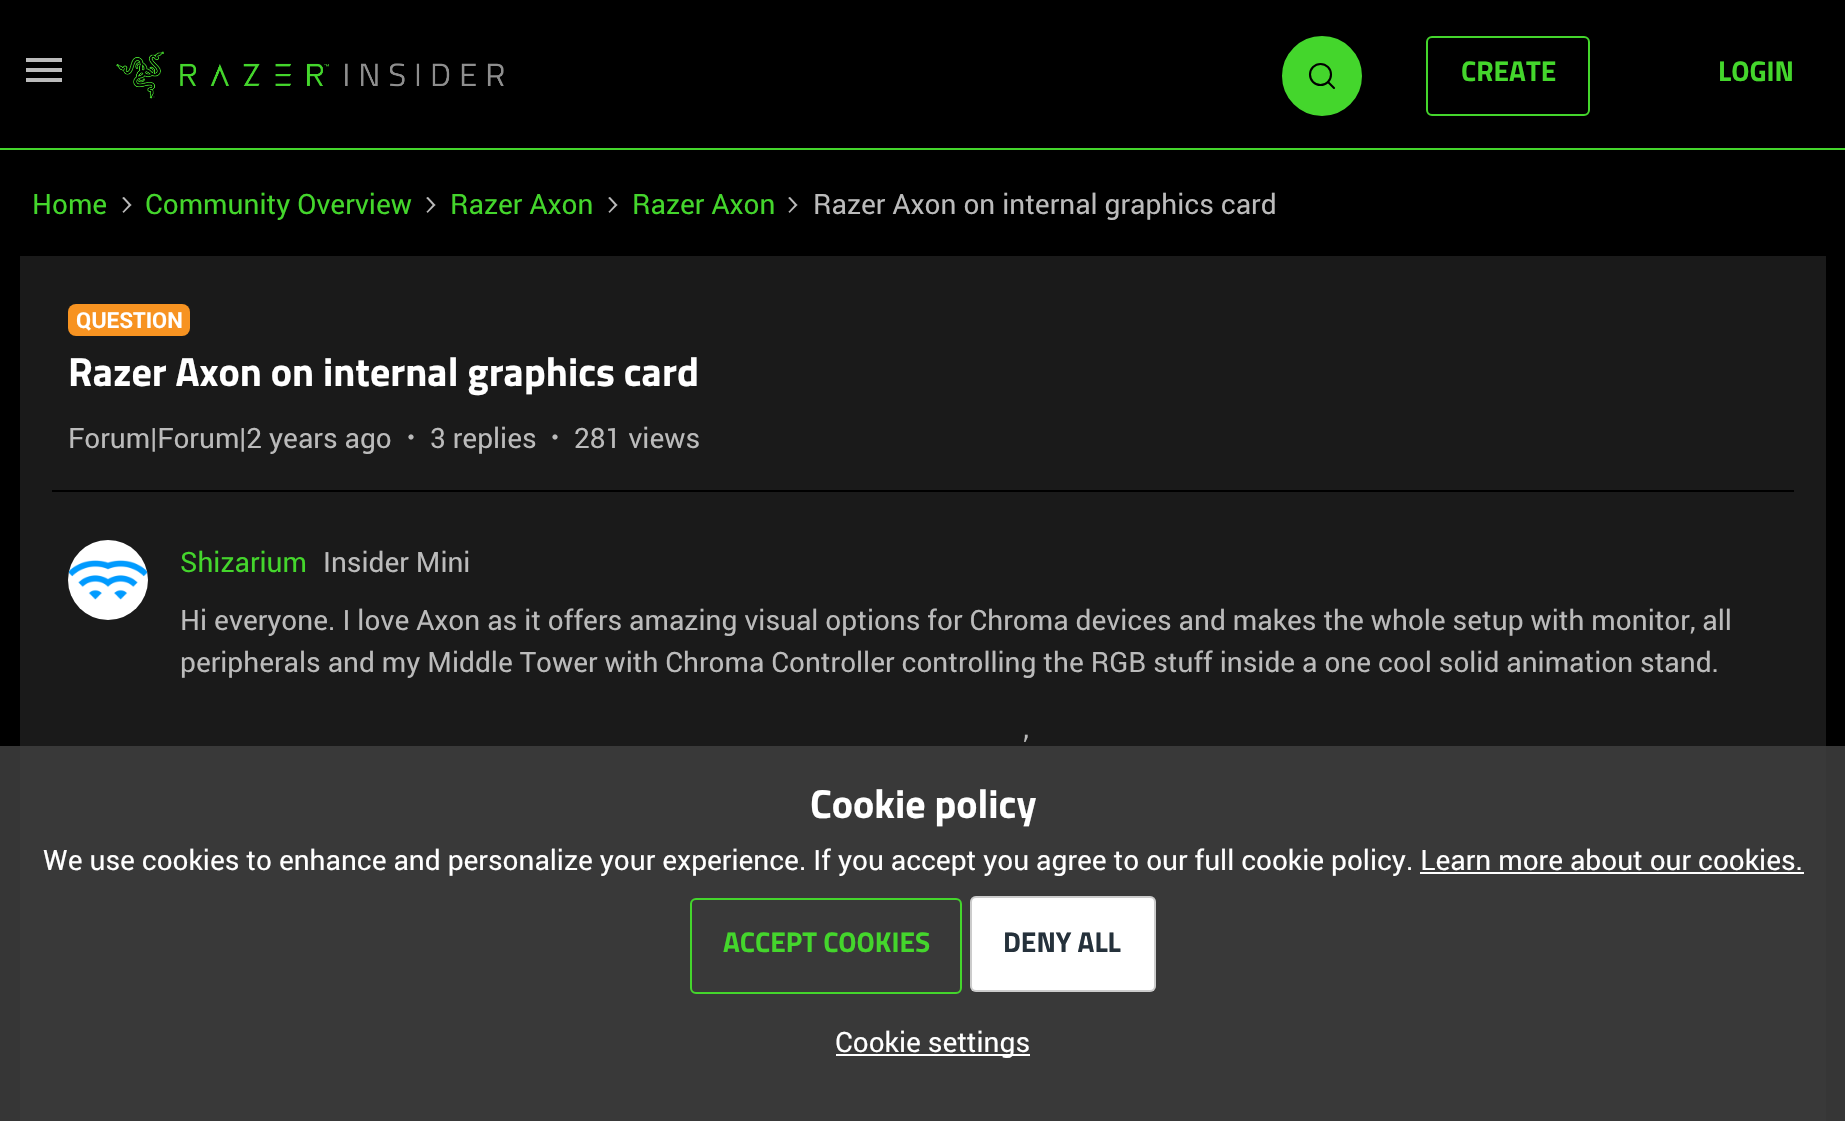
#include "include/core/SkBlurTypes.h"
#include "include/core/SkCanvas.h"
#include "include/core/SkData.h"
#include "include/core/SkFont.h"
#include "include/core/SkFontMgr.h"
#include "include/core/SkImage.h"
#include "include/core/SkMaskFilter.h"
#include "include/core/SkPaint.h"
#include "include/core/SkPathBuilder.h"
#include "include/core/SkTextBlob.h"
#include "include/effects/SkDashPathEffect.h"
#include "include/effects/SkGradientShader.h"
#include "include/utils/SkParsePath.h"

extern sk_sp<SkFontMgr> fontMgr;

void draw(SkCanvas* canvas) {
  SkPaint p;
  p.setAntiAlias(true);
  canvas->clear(SK_ColorBLACK);
  p.setColor(SkColorSetRGB(68, 214, 44));
  canvas->drawRect(SkRect::MakeLTRB(0, 148, 1845, 150), p);
  p.setColor(SkColorSetRGB(187, 187, 187));
  canvas->drawPath(SkPathBuilder().moveTo(26, 82).lineTo(62, 82).lineTo(62, 78).lineTo(26, 78).close().moveTo(26, 72).lineTo(62, 72).lineTo(62, 68).lineTo(26, 68).close().moveTo(26, 58).lineTo(26, 62).lineTo(62, 62).lineTo(62, 58).close().detach(), p);
  canvas->drawImageRect(SkImages::DeferredFromEncodedData(SkData::MakeFromFileName("images/1.png")), SkRect::MakeLTRB(116, 51, 504, 99), SkSamplingOptions());
  p.setColor(SkColorSetRGB(68, 214, 44));
  canvas->drawCircle(1322, 76, 39, p);
  p.setStyle(SkPaint::kStroke_Style);
  p.setStrokeWidth(2);
  p.setColor(SkColorSetRGB(68, 214, 45));
  canvas->drawCircle(1322, 76, 39, p);
  p.setStrokeWidth(2.1f);
  p.setColor(SK_ColorBLACK);
  canvas->drawCircle(1320.5f, 74.5f, 10.5f, p);
  p.setStrokeCap(SkPaint::kRound_Cap);
  canvas->drawPath(SkPathBuilder().moveTo(1328, 82).lineTo(1334, 88).detach(), p);
  p.setStrokeWidth(2);
  p.setStrokeCap(SkPaint::kButt_Cap);
  p.setColor(SkColorSetRGB(68, 214, 44));
  canvas->drawRoundRect(SkRect::MakeLTRB(1427, 37, 1589, 115), 5, 5, p);
  canvas->drawImageRect(SkImages::DeferredFromEncodedData(SkData::MakeFromFileName("images/2.png")), SkRect::MakeLTRB(122, 197, 132, 213), SkSamplingOptions());
  canvas->drawImageRect(SkImages::DeferredFromEncodedData(SkData::MakeFromFileName("images/2.png")), SkRect::MakeLTRB(426, 197, 436, 213), SkSamplingOptions());
  canvas->drawImageRect(SkImages::DeferredFromEncodedData(SkData::MakeFromFileName("images/2.png")), SkRect::MakeLTRB(608, 197, 618, 213), SkSamplingOptions());
  canvas->drawImageRect(SkImages::DeferredFromEncodedData(SkData::MakeFromFileName("images/2.png")), SkRect::MakeLTRB(788, 197, 798, 213), SkSamplingOptions());
  p.setStyle(SkPaint::kFill_Style);
  p.setColor(SkColorSetRGB(26, 26, 26));
  canvas->drawRect(SkRect::MakeLTRB(20, 256, 1826, 1121), p);
  p.setColor(SkColorSetRGB(247, 147, 33));
  canvas->drawRoundRect(SkRect::MakeLTRB(68, 304, 190, 336), 8, 8, p);
  canvas->drawImageRect(SkImages::DeferredFromEncodedData(SkData::MakeFromFileName("images/3.png")), SkRect::MakeLTRB(408, 434, 414, 440), SkSamplingOptions());
  canvas->drawImageRect(SkImages::DeferredFromEncodedData(SkData::MakeFromFileName("images/3.png")), SkRect::MakeLTRB(552, 434, 558, 440), SkSamplingOptions());
  p.setColor(SK_ColorBLACK);
  canvas->drawRect(SkRect::MakeLTRB(52, 490, 1794, 492), p);
  p.setColor(SK_ColorWHITE);
  canvas->drawCircle(108, 580, 40, p);
  canvas->drawImageRect(SkImages::DeferredFromEncodedData(SkData::MakeFromFileName("images/4.png")), SkRect::MakeLTRB(69, 560, 147, 600), SkSamplingOptions());
  p.setColor(SkColorSetARGB(230, 60, 60, 60));
  canvas->drawRect(SkRect::MakeLTRB(0, 746, 1845, 1121), p);
  p.setColor(SK_ColorWHITE);
  canvas->drawRect(SkRect::MakeLTRB(1420, 872, 1804, 874), p);
  p.setStyle(SkPaint::kStroke_Style);
  p.setColor(SkColorSetRGB(68, 214, 44));
  canvas->drawRoundRect(SkRect::MakeLTRB(691, 899, 961, 993), 5, 5, p);
  p.setStyle(SkPaint::kFill_Style);
  p.setColor(SK_ColorWHITE);
  canvas->drawRoundRect(SkRect::MakeLTRB(970, 896, 1156, 992), 6, 6, p);
  p.setStyle(SkPaint::kStroke_Style);
  p.setColor(SkColorSetARGB(51, 0, 0, 0));
  canvas->drawRoundRect(SkRect::MakeLTRB(971, 897, 1155, 991), 5, 5, p);
  p.setStyle(SkPaint::kFill_Style);
  p.setColor(SK_ColorWHITE);
  canvas->drawRect(SkRect::MakeLTRB(836, 1054, 1030, 1056), p);
  SkFont font1(fontMgr->matchFamilyStyle("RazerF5", SkFontStyle::Bold()), 28);
  font1.setSubpixel(true);
  p.setColor(SkColorSetRGB(68, 214, 44));
  canvas->drawString("CREATE", 1461, 81, font1, p);
  canvas->drawString("LOGIN", 1718, 81, font1, p);
  SkFont font2(fontMgr->matchFamilyStyle("Roboto", SkFontStyle::Normal()), 28);
  font2.setSubpixel(true);
  canvas->drawString("Home", 32, 214, font2, p);
  canvas->drawString("Community Overview", 145, 214, font2, p);
  canvas->drawString("Razer Axon", 450, 214, font2, p);
  canvas->drawString("Razer Axon", 632, 214, font2, p);
  p.setColor(SkColorSetRGB(187, 187, 187));
  canvas->drawString("Razer Axon on internal graphics card", 813, 214, font2, p);
  SkFont font3(fontMgr->matchFamilyStyle("Roboto", SkFontStyle::Bold()), 22);
  font3.setSubpixel(true);
  p.setColor(SK_ColorWHITE);
  canvas->drawString("QUESTION", 76, 328, font3, p);
  SkFont font4(fontMgr->matchFamilyStyle("RazerF5", SkFontStyle::Bold()), 40);
  font4.setSubpixel(true);
  canvas->drawString("Razer Axon on internal graphics card", 68, 386, font4, p);
  p.setColor(SkColorSetRGB(187, 187, 187));
  canvas->drawString("Forum|Forum|2 years ago", 68, 448, font2, p);
  canvas->drawString("3 replies", 430, 448, font2, p);
  canvas->drawString("281 views", 574, 448, font2, p);
  p.setColor(SkColorSetRGB(68, 214, 44));
  canvas->drawString("Shizarium", 180, 572, font2, p);
  p.setColor(SkColorSetRGB(187, 187, 187));
  canvas->drawString("Insider Mini", 323, 572, font2, p);
  canvas->drawString("Hi everyone. I love Axon as it offers amazing visual options for Chroma devices and makes the whole setup with monitor, all", 180, 630, font2, p);
  canvas->drawString("peripherals and my Middle Tower with Chroma Controller controlling the RGB stuff inside a one cool solid animation stand.", 180, 672, font2, p);
  canvas->drawString("’", 1023, 756, font2, p);
  p.setColor(SK_ColorWHITE);
  canvas->drawString("Cookie policy", 810, 818, font4, p);
  canvas->drawString("We use cookies to enhance and personalize your experience. If you accept you agree to our full cookie policy. Learn more about our cookies.", 43, 870, font2, p);
  p.setColor(SkColorSetRGB(68, 214, 44));
  canvas->drawString("ACCEPT COOKIES", 723, 952, font1, p);
  p.setColor(SkColorSetRGB(37, 49, 59));
  canvas->drawString("DENY ALL", 1003, 952, font1, p);
  p.setColor(SK_ColorWHITE);
  canvas->drawString("Cookie settings", 835, 1052, font2, p);
}
